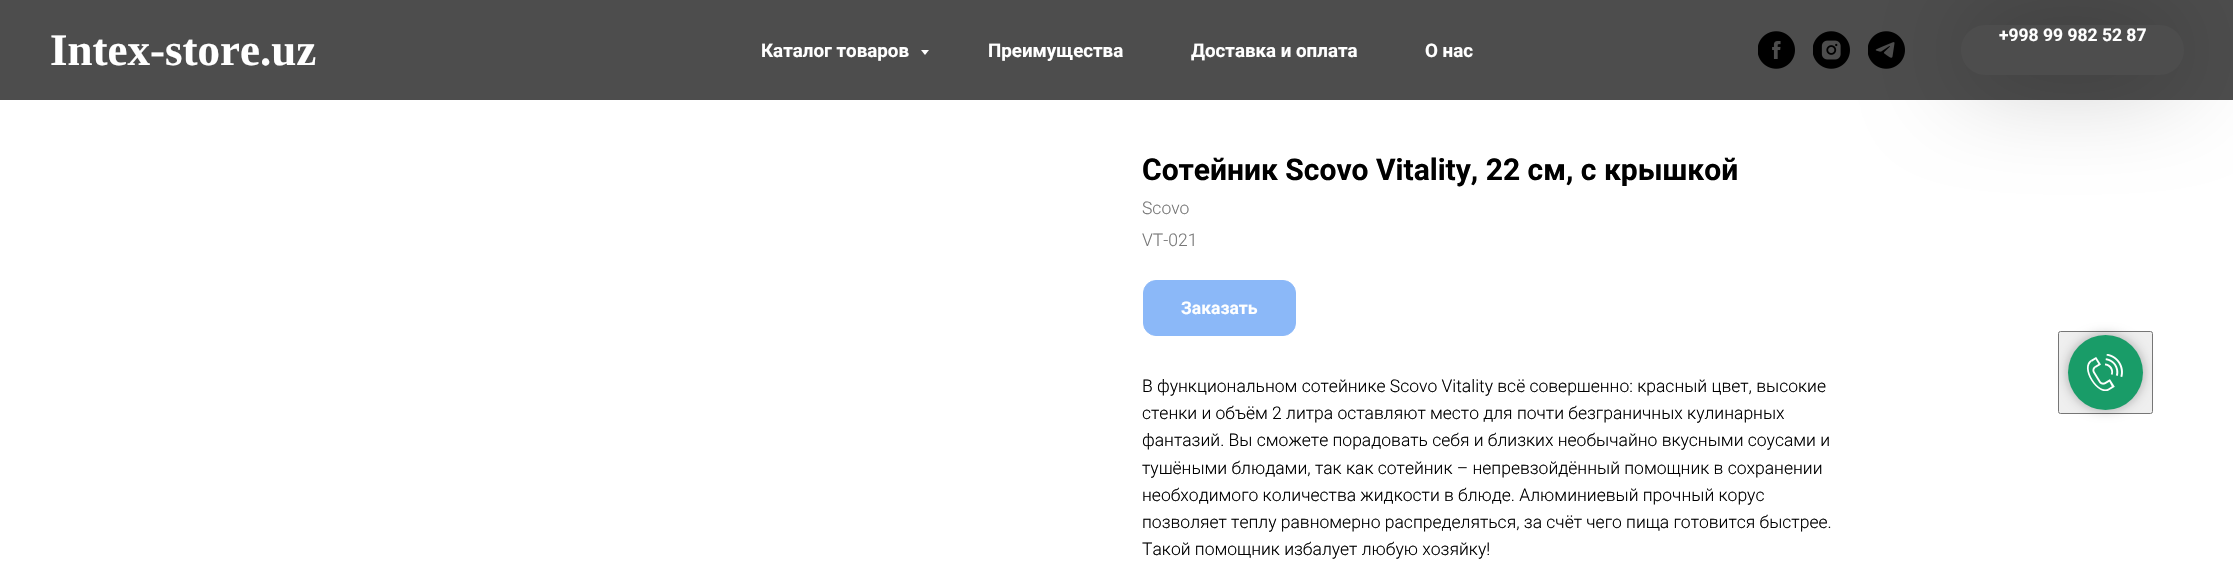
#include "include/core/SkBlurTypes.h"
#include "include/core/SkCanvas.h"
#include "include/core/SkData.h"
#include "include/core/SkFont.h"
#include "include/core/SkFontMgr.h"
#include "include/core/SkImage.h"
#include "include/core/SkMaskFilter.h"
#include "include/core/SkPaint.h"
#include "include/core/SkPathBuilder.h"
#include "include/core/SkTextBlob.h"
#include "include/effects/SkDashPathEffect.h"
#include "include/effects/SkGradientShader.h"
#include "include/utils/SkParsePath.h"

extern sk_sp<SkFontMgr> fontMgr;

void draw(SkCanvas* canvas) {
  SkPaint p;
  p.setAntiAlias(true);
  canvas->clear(SK_ColorWHITE);
  p.setColor(SkColorSetRGB(77, 77, 77));
  canvas->drawRect(SkRect::MakeLTRB(0, 0, 2233, 100), p);
  p.setColor(SK_ColorWHITE);
  canvas->drawPath(SkPathBuilder().moveTo(921, 50).lineTo(929, 50).lineTo(925, 55).close().detach(), p);
  canvas->drawImageRect(SkImages::DeferredFromEncodedData(SkData::MakeFromFileName("images/1.png")), SkRect::MakeLTRB(1758, 31, 1795, 69), SkSamplingOptions());
  canvas->save();
  canvas->clipPath(SkPathBuilder(SkPathFillType::kEvenOdd).moveTo(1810, 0).lineTo(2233, 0).lineTo(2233, 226).lineTo(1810, 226).close().moveTo(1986, 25).lineTo(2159, 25).cubicTo(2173, 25, 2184, 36, 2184, 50).cubicTo(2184, 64, 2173, 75, 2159, 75).lineTo(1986, 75).cubicTo(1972, 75, 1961, 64, 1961, 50).cubicTo(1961, 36, 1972, 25, 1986, 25).close().detach(), true);
  p.setColor(SkColorSetARGB(77, 0, 0, 0));
  p.setMaskFilter(SkMaskFilter::MakeBlur(kNormal_SkBlurStyle, 50));
  canvas->drawRoundRect(SkRect::MakeLTRB(1961, 25, 2184, 75), 25, 25, p);
  p.setMaskFilter(nullptr);
  canvas->restore();
  canvas->drawImageRect(SkImages::DeferredFromEncodedData(SkData::MakeFromFileName("images/2.png")), SkRect::MakeLTRB(1813, 31, 1850, 69), SkSamplingOptions());
  canvas->drawImageRect(SkImages::DeferredFromEncodedData(SkData::MakeFromFileName("images/3.png")), SkRect::MakeLTRB(1868, 31, 1905, 69), SkSamplingOptions());
  p.setColor(SkColorSetRGB(139, 184, 248));
  canvas->drawRoundRect(SkRect::MakeLTRB(1143.5f, 280.5f, 1295.5f, 335.5f), 12.5f, 12.5f, p);
  p.setStyle(SkPaint::kStroke_Style);
  p.setStrokeWidth(1);
  canvas->drawRoundRect(SkRect::MakeLTRB(1143.5f, 280.5f, 1295.5f, 335.5f), 12.5f, 12.5f, p);
  p.setStyle(SkPaint::kFill_Style);
  p.setColor(SkColorSetRGB(239, 239, 239));
  canvas->drawRoundRect(SkRect::MakeLTRB(2058.5f, 331.5f, 2152.5f, 413.5f), 2, 2, p);
  p.setStyle(SkPaint::kStroke_Style);
  p.setColor(SkColorSetRGB(118, 118, 118));
  canvas->drawRoundRect(SkRect::MakeLTRB(2058.5f, 331.5f, 2152.5f, 413.5f), 2, 2, p);
  p.setStyle(SkPaint::kFill_Style);
  p.setColor(SkColorSetARGB(77, 0, 0, 0));
  p.setMaskFilter(SkMaskFilter::MakeBlur(kNormal_SkBlurStyle, 6));
  canvas->drawRoundRect(SkRect::MakeLTRB(2068, 335, 2143, 410), 37.5f, 37.5f, p);
  p.setMaskFilter(nullptr);
  p.setColor(SkColorSetRGB(25, 156, 104));
  canvas->drawCircle(2105.5f, 372.5f, 37.5f, p);
  canvas->drawImageRect(SkImages::DeferredFromEncodedData(SkData::MakeFromFileName("images/4.png")), SkRect::MakeLTRB(2086, 354, 2123, 391), SkSamplingOptions());
  SkFont font1(fontMgr->matchFamilyStyle("Liberation Serif", SkFontStyle::Bold()), 45);
  font1.setSubpixel(true);
  p.setColor(SK_ColorWHITE);
  canvas->drawString("Intex-store.uz", 50, 65, font1, p);
  SkFont font2(fontMgr->matchFamilyStyle("Roboto", SkFontStyle::Bold()), 18.75f);
  font2.setSubpixel(true);
  canvas->drawString("Каталог товаров", 761, 57, font2, p);
  canvas->drawString("Преимущества", 988, 57, font2, p);
  canvas->drawString("Доставка и оплата", 1191, 57, font2, p);
  canvas->drawString("О нас", 1425, 57, font2, p);
  SkFont font3(fontMgr->matchFamilyStyle("Roboto", SkFontStyle::Bold()), 17.5f);
  font3.setSubpixel(true);
  canvas->drawString("+998 99 982 52 87", 1999, 41, font3, p);
  SkFont font4(fontMgr->matchFamilyStyle("Roboto", SkFontStyle::Bold()), 30);
  font4.setSubpixel(true);
  p.setColor(SK_ColorBLACK);
  canvas->drawString("Сотейник Scovo Vitality, 22 см, с крышкой", 1142, 180, font4, p);
  SkFont font5(fontMgr->matchFamilyStyle("Roboto", SkFontStyle(300, SkFontStyle::kNormal_Width, SkFontStyle::kUpright_Slant)), 17.5f);
  font5.setSubpixel(true);
  p.setColor(SkColorSetRGB(119, 119, 119));
  canvas->drawString("Scovo", 1142, 214, font5, p);
  canvas->drawString("VT-021", 1142, 246, font5, p);
  p.setColor(SK_ColorWHITE);
  canvas->drawString("Заказать", 1181, 314, font3, p);
  p.setColor(SK_ColorBLACK);
  canvas->drawString("В функциональном сотейнике Scovo Vitality всё совершенно: красный цвет, высокие", 1142, 392, font5, p);
  canvas->drawString("стенки и объём 2 литра оставляют место для почти безграничных кулинарных", 1142, 419, font5, p);
  canvas->drawString("фантазий. Вы сможете порадовать себя и близких необычайно вкусными соусами и", 1142, 446, font5, p);
  canvas->drawString("тушёными блюдами, так как сотейник – непревзойдённый помощник в сохранении", 1142, 474, font5, p);
  canvas->drawString("необходимого количества жидкости в блюде. Алюминиевый прочный корус", 1142, 501, font5, p);
  canvas->drawString("позволяет теплу равномерно распределяться, за счёт чего пища готовится быстрее.", 1142, 528, font5, p);
  canvas->drawString("Такой помощник избалует любую хозяйку!", 1142, 555, font5, p);
}
